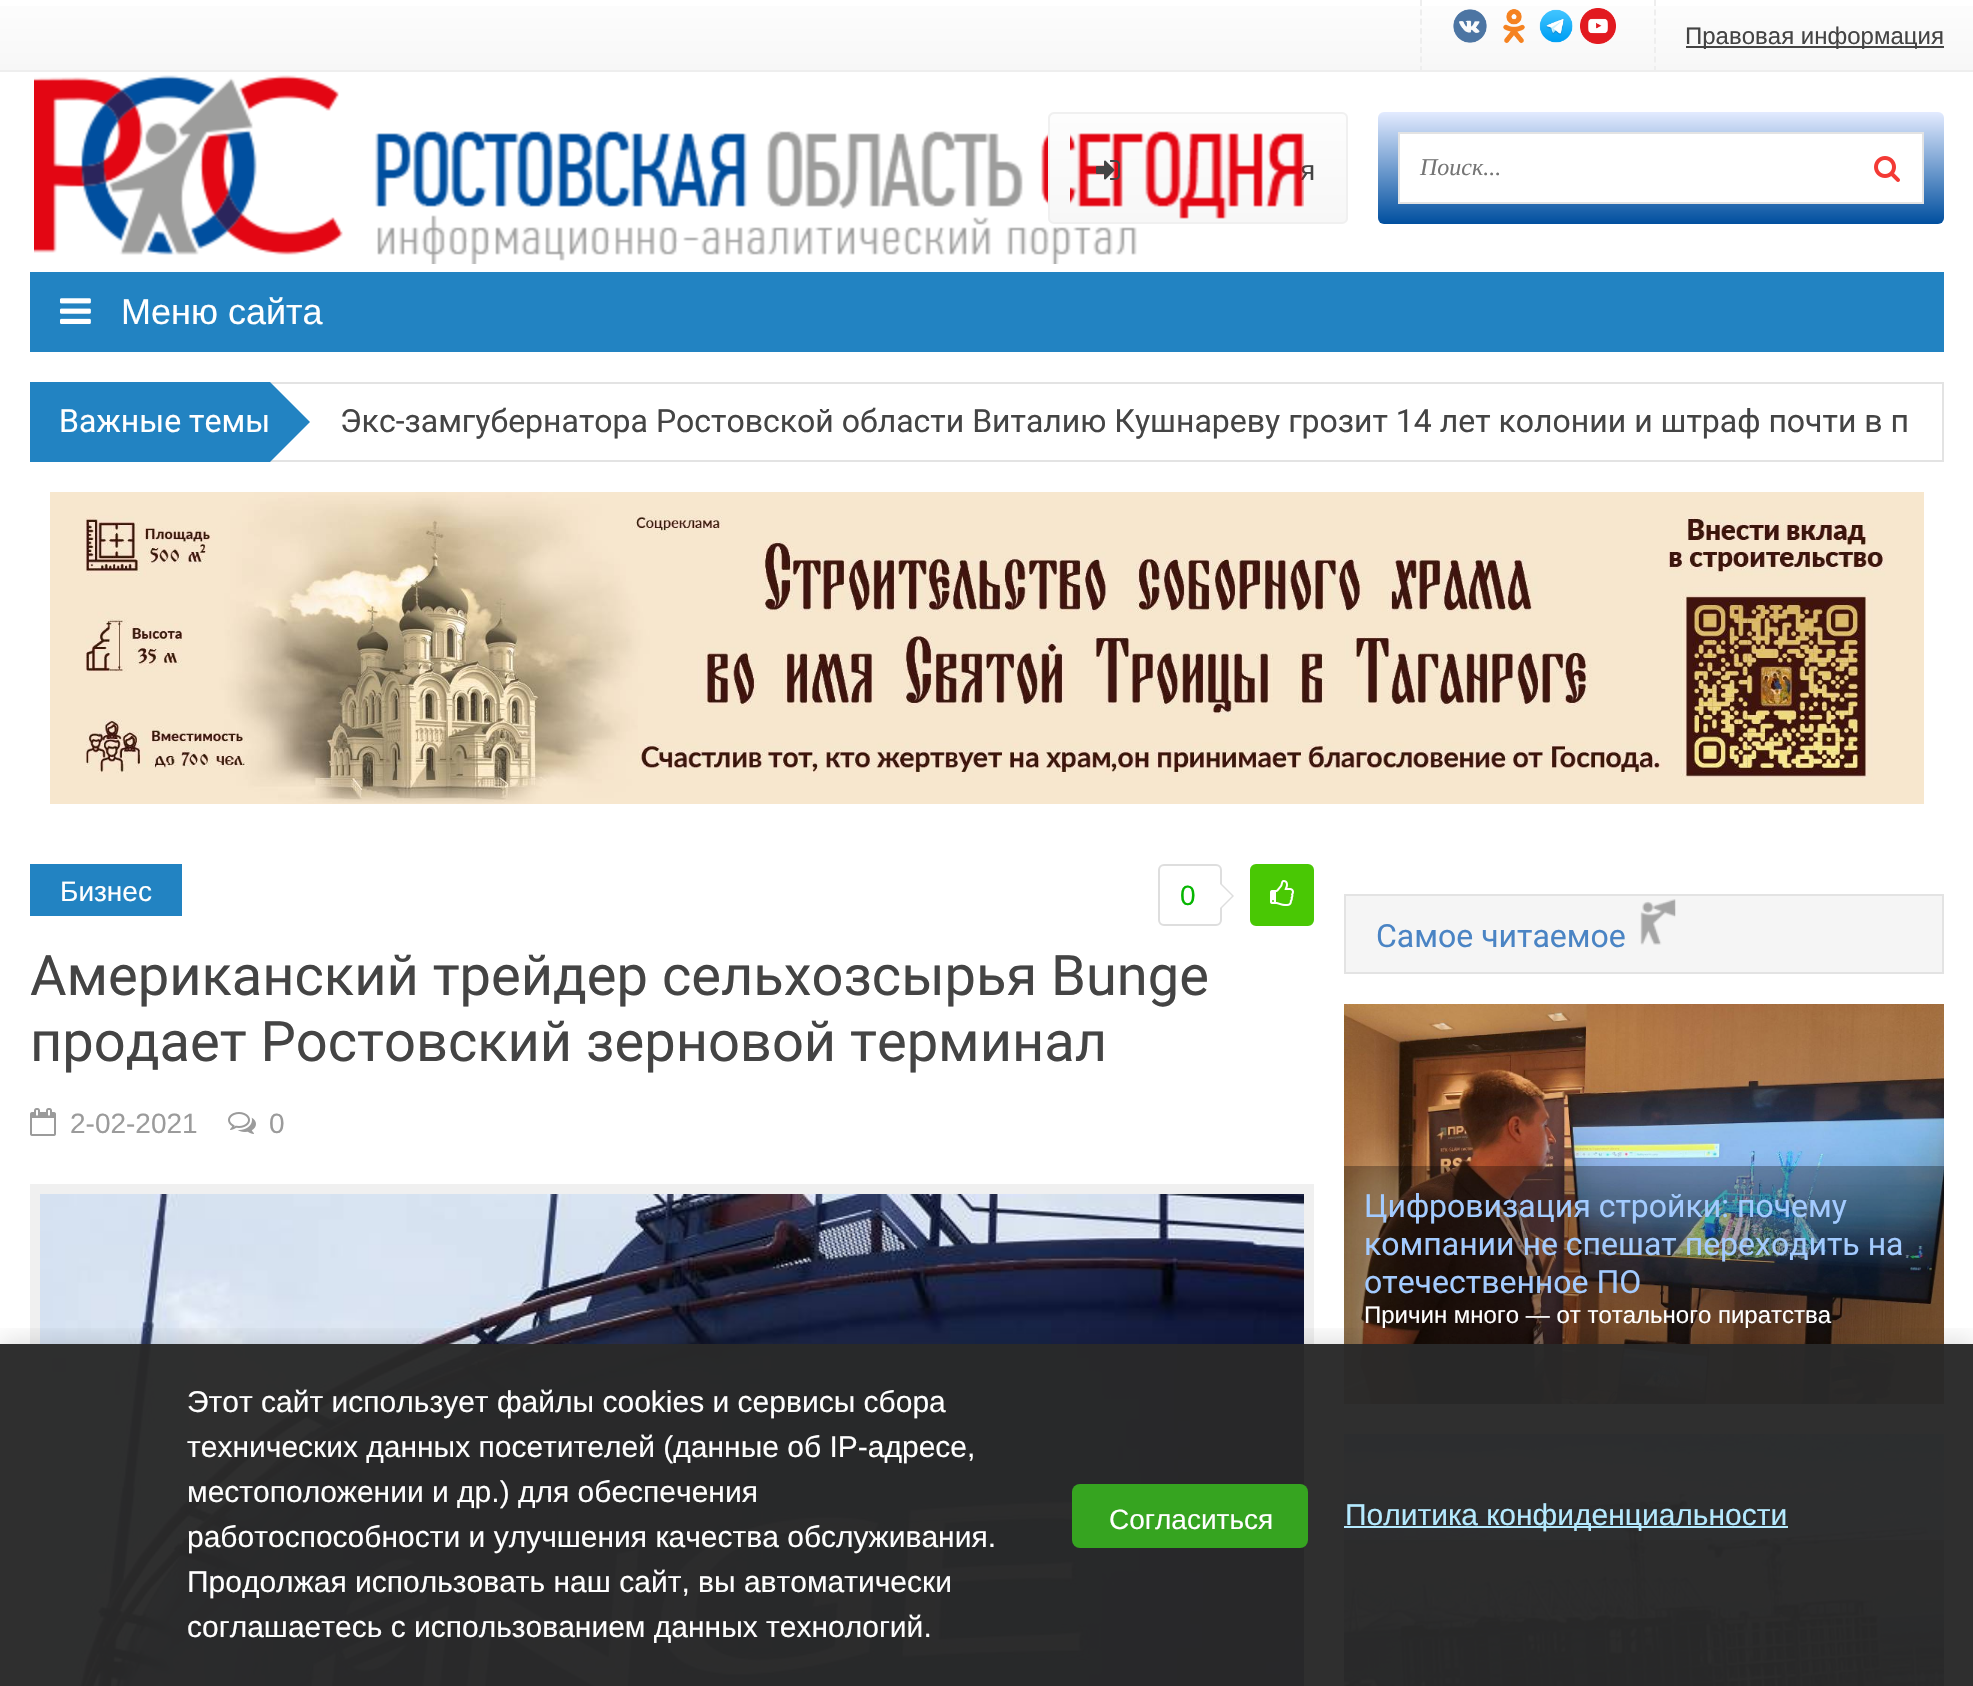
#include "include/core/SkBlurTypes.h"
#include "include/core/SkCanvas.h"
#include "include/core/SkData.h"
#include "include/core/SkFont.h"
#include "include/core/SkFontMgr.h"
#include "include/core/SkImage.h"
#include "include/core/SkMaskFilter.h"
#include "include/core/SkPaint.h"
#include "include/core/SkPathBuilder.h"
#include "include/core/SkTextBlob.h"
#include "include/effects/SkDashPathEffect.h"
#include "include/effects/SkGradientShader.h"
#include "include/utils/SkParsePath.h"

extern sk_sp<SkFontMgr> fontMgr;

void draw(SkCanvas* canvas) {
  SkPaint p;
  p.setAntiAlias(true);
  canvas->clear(SK_ColorWHITE);
  {
    const SkColor colors[] = {SkColorSetRGB(253, 253, 253), SkColorSetRGB(247, 247, 247)};
    const float stops[] = {0, 1};
    const SkPoint ends[] = {{987, 0}, {987, 70}};
    p.setShader(SkGradientShader::MakeLinear(ends, colors, stops, 2, SkTileMode::kClamp));
    p.setAlpha(255);
  }
  canvas->drawRect(SkRect::MakeLTRB(0, 6, 1973, 70), p);
  p.setShader(nullptr);
  p.setColor(SkColorSetRGB(238, 238, 238));
  canvas->drawRect(SkRect::MakeLTRB(0, 70, 1973, 72), p);
  p.setStyle(SkPaint::kStroke_Style);
  p.setStrokeWidth(2);
  p.setPathEffect(SkDashPathEffect::Make({{6, 3.42f}}, 0));
  canvas->drawPath(SkPathBuilder().moveTo(1421, 0).lineTo(1421, 72).detach(), p);
  p.setPathEffect(nullptr);
  canvas->drawImageRect(SkImages::DeferredFromEncodedData(SkData::MakeFromFileName("images/1.png")), SkRect::MakeLTRB(1453, 9, 1487, 43), SkSamplingOptions());
  canvas->drawImageRect(SkImages::DeferredFromEncodedData(SkData::MakeFromFileName("images/2.png")), SkRect::MakeLTRB(1503, 9, 1525, 44), SkSamplingOptions());
  canvas->drawImageRect(SkImages::DeferredFromEncodedData(SkData::MakeFromFileName("images/3.png")), SkRect::MakeLTRB(1539, 9, 1573, 43), SkSamplingOptions());
  canvas->drawImageRect(SkImages::DeferredFromEncodedData(SkData::MakeFromFileName("images/4.png")), SkRect::MakeLTRB(1580, 8, 1616, 44), SkSamplingOptions());
  p.setPathEffect(SkDashPathEffect::Make({{6, 3.42f}}, 0));
  canvas->drawPath(SkPathBuilder().moveTo(1655, 0).lineTo(1655, 72).detach(), p);
  p.setPathEffect(nullptr);
  p.setStyle(SkPaint::kFill_Style);
  p.setColor(SkColorSetRGB(68, 68, 68));
  canvas->drawRect(SkRect::MakeLTRB(1686, 46, 1944, 48), p);
  canvas->save();
  canvas->clipPath(SkPathBuilder().moveTo(1070, 112).lineTo(1342, 112).cubicTo(1345.5f, 112, 1348, 114.5f, 1348, 118).lineTo(1348, 218).cubicTo(1348, 221.5f, 1345.5f, 224, 1342, 224).lineTo(1070, 224).cubicTo(1066.5f, 224, 1064, 221.5f, 1064, 218).lineTo(1064, 118).cubicTo(1064, 114.5f, 1066.5f, 112, 1070, 112).close().detach(), true);
  {
    const SkColor colors[] = {SkColorSetRGB(253, 253, 253), SkColorSetRGB(247, 247, 247)};
    const float stops[] = {0, 1};
    const SkPoint ends[] = {{1206, 114}, {1206, 222}};
    p.setShader(SkGradientShader::MakeLinear(ends, colors, stops, 2, SkTileMode::kClamp));
    p.setAlpha(255);
  }
  canvas->drawRect(SkRect::MakeLTRB(1070, 114, 1348, 222), p);
  canvas->restore();
  p.setStyle(SkPaint::kStroke_Style);
  p.setShader(nullptr);
  p.setColor(SkColorSetRGB(240, 240, 240));
  canvas->drawRoundRect(SkRect::MakeLTRB(1065, 113, 1347, 223), 5, 5, p);
  p.setStyle(SkPaint::kFill_Style);
  {
    const SkColor colors[] = {SkColorSetRGB(227, 235, 255), SkColorSetRGB(0, 79, 159)};
    const float stops[] = {0, 1};
    const SkPoint ends[] = {{1661, 112}, {1661, 224}};
    p.setShader(SkGradientShader::MakeLinear(ends, colors, stops, 2, SkTileMode::kClamp));
    p.setAlpha(255);
  }
  canvas->drawRoundRect(SkRect::MakeLTRB(1378, 112, 1944, 224), 6, 6, p);
  p.setShader(nullptr);
  p.setColor(SK_ColorWHITE);
  canvas->drawRect(SkRect::MakeLTRB(1399, 133, 1923, 203), p);
  p.setStyle(SkPaint::kStroke_Style);
  p.setColor(SkColorSetRGB(227, 227, 227));
  canvas->drawRect(SkRect::MakeLTRB(1399, 133, 1923, 203), p);
  canvas->drawImageRect(SkImages::DeferredFromEncodedData(SkData::MakeFromFileName("images/7.png")), SkRect::MakeLTRB(1874, 156, 1900, 182), SkSamplingOptions());
  p.setStyle(SkPaint::kFill_Style);
  p.setColor(SkColorSetRGB(34, 131, 194));
  canvas->drawRect(SkRect::MakeLTRB(30, 272, 1944, 352), p);
  canvas->drawImageRect(SkImages::DeferredFromEncodedData(SkData::MakeFromFileName("images/8.png")), SkRect::MakeLTRB(60, 298, 91, 324), SkSamplingOptions());
  p.setStyle(SkPaint::kStroke_Style);
  p.setColor(SkColorSetRGB(227, 227, 227));
  canvas->drawRect(SkRect::MakeLTRB(31, 383, 1943, 461), p);
  p.setStyle(SkPaint::kFill_Style);
  p.setColor(SkColorSetRGB(34, 131, 194));
  canvas->drawRect(SkRect::MakeLTRB(30, 382, 270, 462), p);
  canvas->drawPath(SkPathBuilder().moveTo(270, 462).lineTo(270, 382).lineTo(310, 422).close().detach(), p);
  canvas->drawImageRect(SkImages::DeferredFromEncodedData(SkData::MakeFromFileName("images/9.png")), SkRect::MakeLTRB(50, 492, 1924, 804), SkSamplingOptions());
  canvas->drawRect(SkRect::MakeLTRB(30, 864, 182, 916), p);
  p.setStyle(SkPaint::kStroke_Style);
  p.setColor(SkColorSetRGB(222, 222, 222));
  canvas->drawRoundRect(SkRect::MakeLTRB(1159, 865, 1221, 925), 5, 5, p);
  p.setStyle(SkPaint::kFill_Style);
  canvas->drawPath(SkPathBuilder().moveTo(1220, 910).lineTo(1220, 882).lineTo(1234, 896).close().detach(), p);
  p.setColor(SK_ColorWHITE);
  canvas->drawPath(SkPathBuilder().moveTo(1220, 908).lineTo(1220, 884).lineTo(1232, 896).close().detach(), p);
  p.setColor(SkColorSetRGB(73, 200, 4));
  canvas->drawRoundRect(SkRect::MakeLTRB(1251, 865, 1313, 925), 5, 5, p);
  p.setStyle(SkPaint::kStroke_Style);
  canvas->drawRoundRect(SkRect::MakeLTRB(1251, 865, 1313, 925), 5, 5, p);
  canvas->drawImageRect(SkImages::DeferredFromEncodedData(SkData::MakeFromFileName("images/10.png")), SkRect::MakeLTRB(1270, 880, 1294, 906), SkSamplingOptions());
  canvas->drawImageRect(SkImages::DeferredFromEncodedData(SkData::MakeFromFileName("images/11.png")), SkRect::MakeLTRB(30, 1108, 56, 1136), SkSamplingOptions());
  canvas->drawImageRect(SkImages::DeferredFromEncodedData(SkData::MakeFromFileName("images/12.png")), SkRect::MakeLTRB(228, 1112, 256, 1134), SkSamplingOptions());
  p.setStrokeWidth(10);
  p.setColor(SkColorSetRGB(240, 240, 240));
  canvas->drawRect(SkRect::MakeLTRB(35, 1189, 1309, 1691), p);
  canvas->drawImageRect(SkImages::DeferredFromEncodedData(SkData::MakeFromFileName("images/13.png")), SkRect::MakeLTRB(40, 1194, 1304, 1686), SkSamplingOptions());
  p.setStyle(SkPaint::kFill_Style);
  p.setColor(SkColorSetRGB(245, 245, 245));
  canvas->drawRect(SkRect::MakeLTRB(1345, 895, 1943, 973), p);
  p.setStyle(SkPaint::kStroke_Style);
  p.setStrokeWidth(2);
  p.setColor(SkColorSetRGB(227, 227, 227));
  canvas->drawRect(SkRect::MakeLTRB(1345, 895, 1943, 973), p);
  canvas->drawImageRect(SkImages::DeferredFromEncodedData(SkData::MakeFromFileName("images/14.png")), SkRect::MakeLTRB(1640, 899, 1676, 945), SkSamplingOptions());
  canvas->drawImageRect(SkImages::DeferredFromEncodedData(SkData::MakeFromFileName("images/15.png")), SkRect::MakeLTRB(1344, 1004, 1944, 1404), SkSamplingOptions());
  p.setStyle(SkPaint::kFill_Style);
  p.setColor(SkColorSetARGB(77, 0, 0, 0));
  canvas->drawRect(SkRect::MakeLTRB(1344, 1166, 1944, 1404), p);
  canvas->drawImageRect(SkImages::DeferredFromEncodedData(SkData::MakeFromFileName("images/16.png")), SkRect::MakeLTRB(1344, 1434, 1944, 1686), SkSamplingOptions());
  canvas->drawRect(SkRect::MakeLTRB(1344, 1540, 1944, 1686), p);
  canvas->save();
  canvas->clipRect(SkRect::MakeLTRB(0, 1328, 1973, 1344));
  p.setColor(SkColorSetARGB(33, 0, 0, 0));
  p.setMaskFilter(SkMaskFilter::MakeBlur(kNormal_SkBlurStyle, 12));
  canvas->drawRect(SkRect::MakeLTRB(0, 1340, 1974, 1682), p);
  p.setMaskFilter(nullptr);
  canvas->restore();
  p.setColor(SkColorSetARGB(247, 40, 40, 40));
  canvas->drawRect(SkRect::MakeLTRB(0, 1344, 1973, 1686), p);
  p.setColor(SkColorSetRGB(54, 164, 32));
  canvas->drawRoundRect(SkRect::MakeLTRB(1072, 1484, 1308, 1548), 8, 8, p);
  p.setColor(SkColorSetRGB(180, 234, 255));
  canvas->drawRect(SkRect::MakeLTRB(1344, 1526, 1788, 1528), p);
  SkFont font1(fontMgr->matchFamilyStyle("Liberation Sans", SkFontStyle::Normal()), 24);
  font1.setSubpixel(true);
  p.setColor(SkColorSetRGB(68, 68, 68));
  canvas->drawString("Правовая информация", 1685, 44, font1, p);
  SkFont font2(fontMgr->matchFamilyStyle("Liberation Sans", SkFontStyle::Normal()), 28);
  font2.setSubpixel(true);
  canvas->drawString("я", 1300, 180, font2, p);
  canvas->drawImageRect(SkImages::DeferredFromEncodedData(SkData::MakeFromFileName("images/5.png")), SkRect::MakeLTRB(34, 75, 1304, 264), SkSamplingOptions());
  canvas->save();
  canvas->clipPath(SkPathBuilder().moveTo(1054, 112).lineTo(1070, 112).lineTo(1070, 224).lineTo(1054, 224).cubicTo(1050.5f, 224, 1048, 221.5f, 1048, 218).lineTo(1048, 118).cubicTo(1048, 114.5f, 1050.5f, 112, 1054, 112).close().detach(), true);
  {
    const SkColor colors[] = {SkColorSetRGB(253, 253, 253), SkColorSetRGB(247, 247, 247)};
    const float stops[] = {0, 1};
    const SkPoint ends[] = {{1060, 114}, {1060, 222}};
    p.setShader(SkGradientShader::MakeLinear(ends, colors, stops, 2, SkTileMode::kClamp));
    p.setAlpha(255);
  }
  canvas->drawRect(SkRect::MakeLTRB(1048, 114, 1070, 222), p);
  canvas->restore();
  p.setShader(nullptr);
  p.setColor(SkColorSetRGB(240, 240, 240));
  canvas->drawPath(SkPathBuilder(SkPathFillType::kEvenOdd).moveTo(1054, 112).lineTo(1070, 112).lineTo(1070, 224).lineTo(1054, 224).cubicTo(1051, 224, 1048, 221, 1048, 218).lineTo(1048, 118).cubicTo(1048, 115, 1051, 112, 1054, 112).close().moveTo(1054, 114).lineTo(1070, 114).lineTo(1070, 222).lineTo(1054, 222).cubicTo(1052, 222, 1050, 220, 1050, 218).lineTo(1050, 118).cubicTo(1050, 116, 1052, 114, 1054, 114).close().detach(), p);
  canvas->drawImageRect(SkImages::DeferredFromEncodedData(SkData::MakeFromFileName("images/6.png")), SkRect::MakeLTRB(1096, 160, 1120, 180), SkSamplingOptions());
  SkFont font3(fontMgr->matchFamilyStyle("Liberation Serif", SkFontStyle::Italic()), 24);
  font3.setSubpixel(true);
  p.setColor(SkColorSetRGB(117, 117, 117));
  canvas->drawString("Поиск...", 1420, 175, font3, p);
  SkFont font4(fontMgr->matchFamilyStyle("Liberation Sans", SkFontStyle::Normal()), 36);
  font4.setSubpixel(true);
  p.setColor(SK_ColorWHITE);
  canvas->drawString("Меню сайта", 121, 324, font4, p);
  SkFont font5(fontMgr->matchFamilyStyle("Roboto", SkFontStyle::Normal()), 32);
  font5.setSubpixel(true);
  canvas->drawString("Важные темы", 59, 432, font5, p);
  p.setColor(SkColorSetRGB(68, 68, 68));
  canvas->drawString("Экс-замгубернатора Ростовской области Виталию Кушнареву грозит 14 лет колонии и штраф почти в п", 340, 432, font5, p);
  p.setColor(SK_ColorWHITE);
  canvas->drawString("Бизнес", 60, 901, font2, p);
  p.setColor(SkColorSetRGB(6, 182, 1));
  canvas->drawString("0", 1180, 905, font2, p);
  SkFont font6(fontMgr->matchFamilyStyle("Roboto", SkFontStyle::Normal()), 56);
  font6.setSubpixel(true);
  p.setColor(SkColorSetRGB(68, 68, 68));
  canvas->drawString("Американский трейдер сельхозсырья Bunge", 30, 995, font6, p);
  canvas->drawString("продает Ростовский зерновой терминал", 30, 1061, font6, p);
  p.setColor(SkColorSetRGB(155, 155, 155));
  canvas->drawString("2-02-2021", 70, 1133, font2, p);
  canvas->drawString("0", 269, 1133, font2, p);
  p.setColor(SkColorSetRGB(74, 132, 196));
  canvas->drawString("Самое читаемое", 1376, 947, font5, p);
  p.setColor(SkColorSetRGB(163, 203, 255));
  canvas->drawString("Цифровизация стройки: почему", 1364, 1217, font5, p);
  canvas->drawString("компании не спешат переходить на", 1364, 1255, font5, p);
  canvas->drawString("отечественное ПО", 1364, 1293, font5, p);
  p.setColor(SK_ColorWHITE);
  canvas->drawString("Причин много — от тотального пиратства", 1364, 1323, font1, p);
  SkFont font7(fontMgr->matchFamilyStyle("Liberation Sans", SkFontStyle::Normal()), 30);
  font7.setSubpixel(true);
  canvas->drawString("Этот сайт использует файлы cookies и сервисы сбора", 187, 1412, font7, p);
  canvas->drawString("технических данных посетителей (данные об IP-адресе,", 187, 1457, font7, p);
  canvas->drawString("местоположении и др.) для обеспечения", 187, 1502, font7, p);
  canvas->drawString("работоспособности и улучшения качества обслуживания.", 187, 1547, font7, p);
  canvas->drawString("Продолжая использовать наш сайт, вы автоматически", 187, 1592, font7, p);
  canvas->drawString("соглашаетесь с использованием данных технологий.", 187, 1637, font7, p);
  canvas->drawString("Согласиться", 1109, 1529, font2, p);
  p.setColor(SkColorSetRGB(180, 234, 255));
  canvas->drawString("Политика конфиденциальности", 1345, 1525, font7, p);
}
